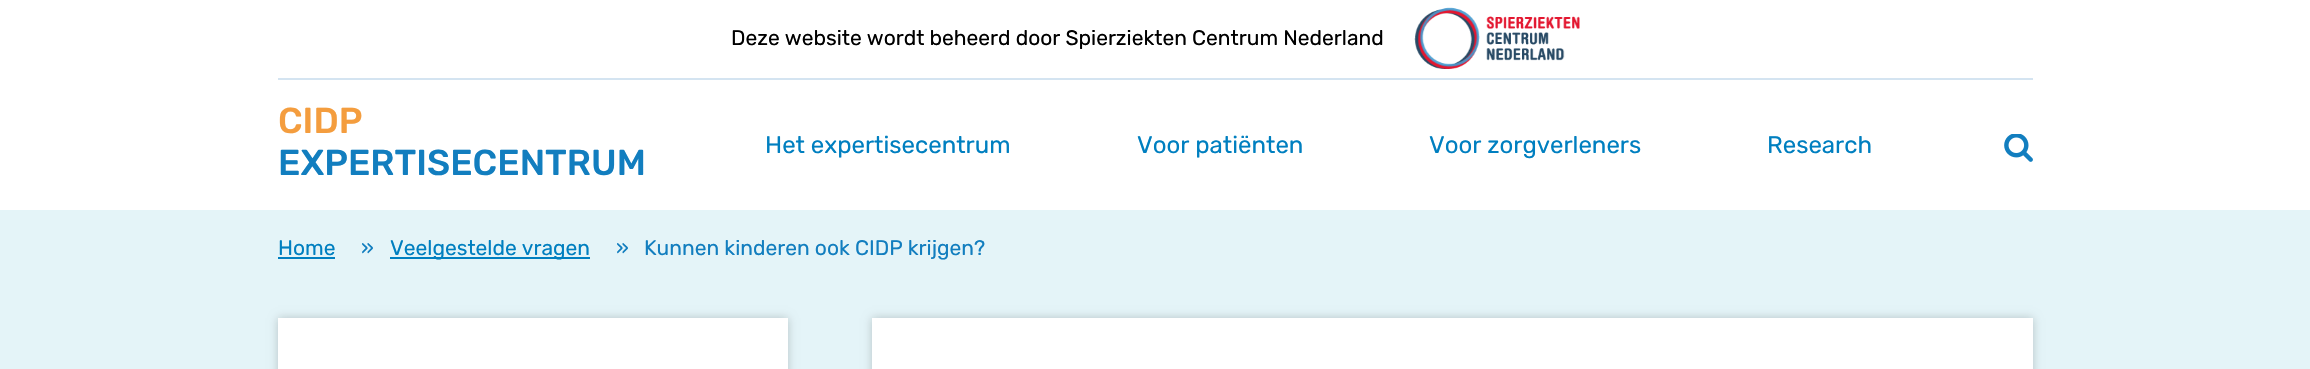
#include "include/core/SkBlurTypes.h"
#include "include/core/SkCanvas.h"
#include "include/core/SkData.h"
#include "include/core/SkFont.h"
#include "include/core/SkFontMgr.h"
#include "include/core/SkImage.h"
#include "include/core/SkMaskFilter.h"
#include "include/core/SkPaint.h"
#include "include/core/SkPathBuilder.h"
#include "include/core/SkTextBlob.h"
#include "include/effects/SkDashPathEffect.h"
#include "include/effects/SkGradientShader.h"
#include "include/utils/SkParsePath.h"

extern sk_sp<SkFontMgr> fontMgr;

void draw(SkCanvas* canvas) {
  SkPaint p;
  p.setAntiAlias(true);
  canvas->clear(SkColorSetRGB(228, 244, 248));
  p.setColor(SK_ColorWHITE);
  canvas->drawRect(SkRect::MakeLTRB(0, 0, 2310, 210), p);
  p.setColor(SkColorSetRGB(212, 228, 241));
  canvas->drawRect(SkRect::MakeLTRB(278, 78, 2033, 80), p);
  canvas->drawImageRect(SkImages::DeferredFromEncodedData(SkData::MakeFromFileName("images/1.png")), SkRect::MakeLTRB(1414, 7, 1580, 69), SkSamplingOptions());
  canvas->drawImageRect(SkImages::DeferredFromEncodedData(SkData::MakeFromFileName("images/2.png")), SkRect::MakeLTRB(2004, 134, 2033, 162), SkSamplingOptions());
  p.setColor(SkColorSetRGB(0, 127, 192));
  canvas->drawRect(SkRect::MakeLTRB(278, 257, 335, 259), p);
  canvas->drawRect(SkRect::MakeLTRB(390, 257, 590, 259), p);
  p.setColor(SkColorSetARGB(51, 0, 0, 0));
  p.setMaskFilter(SkMaskFilter::MakeBlur(kNormal_SkBlurStyle, 4.5f));
  canvas->drawRect(SkRect::MakeLTRB(278, 318, 788, 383), p);
  p.setMaskFilter(nullptr);
  p.setColor(SK_ColorWHITE);
  canvas->drawRect(SkRect::MakeLTRB(278, 318, 788, 369), p);
  p.setColor(SkColorSetARGB(51, 0, 0, 0));
  p.setMaskFilter(SkMaskFilter::MakeBlur(kNormal_SkBlurStyle, 4.5f));
  canvas->drawRect(SkRect::MakeLTRB(872, 318, 2033, 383), p);
  p.setMaskFilter(nullptr);
  p.setColor(SK_ColorWHITE);
  canvas->drawRect(SkRect::MakeLTRB(872, 318, 2033, 369), p);
  SkFont font1(fontMgr->matchFamilyStyle("Rubik", SkFontStyle::Normal()), 21);
  font1.setSubpixel(true);
  p.setColor(SK_ColorBLACK);
  canvas->drawString("Deze website wordt beheerd door Spierziekten Centrum Nederland", 731, 45, font1, p);
  SkFont font2(fontMgr->matchFamilyStyle("Rubik", SkFontStyle(500, SkFontStyle::kNormal_Width, SkFontStyle::kUpright_Slant)), 36);
  font2.setSubpixel(true);
  p.setColor(SkColorSetRGB(244, 157, 62));
  canvas->drawString("CIDP", 278, 133, font2, p);
  p.setColor(SkColorSetRGB(18, 126, 191));
  canvas->drawString("EXPERTISECENTRUM", 278, 175, font2, p);
  SkFont font3(fontMgr->matchFamilyStyle("Rubik", SkFontStyle::Normal()), 24);
  font3.setSubpixel(true);
  p.setColor(SkColorSetRGB(0, 127, 192));
  canvas->drawString("Het expertisecentrum", 765, 153, font3, p);
  canvas->drawString("Voor patiënten", 1137, 153, font3, p);
  canvas->drawString("Voor zorgverleners", 1429, 153, font3, p);
  canvas->drawString("Research", 1767, 153, font3, p);
  canvas->drawString("Home", 278, 255, font1, p);
  p.setColor(SkColorSetRGB(18, 126, 191));
  canvas->drawString("»", 361, 255, font1, p);
  p.setColor(SkColorSetRGB(0, 127, 192));
  canvas->drawString("Veelgestelde vragen", 390, 255, font1, p);
  p.setColor(SkColorSetRGB(18, 126, 191));
  canvas->drawString("»", 616, 255, font1, p);
  canvas->drawString("Kunnen kinderen ook CIDP krijgen?", 644, 255, font1, p);
}
